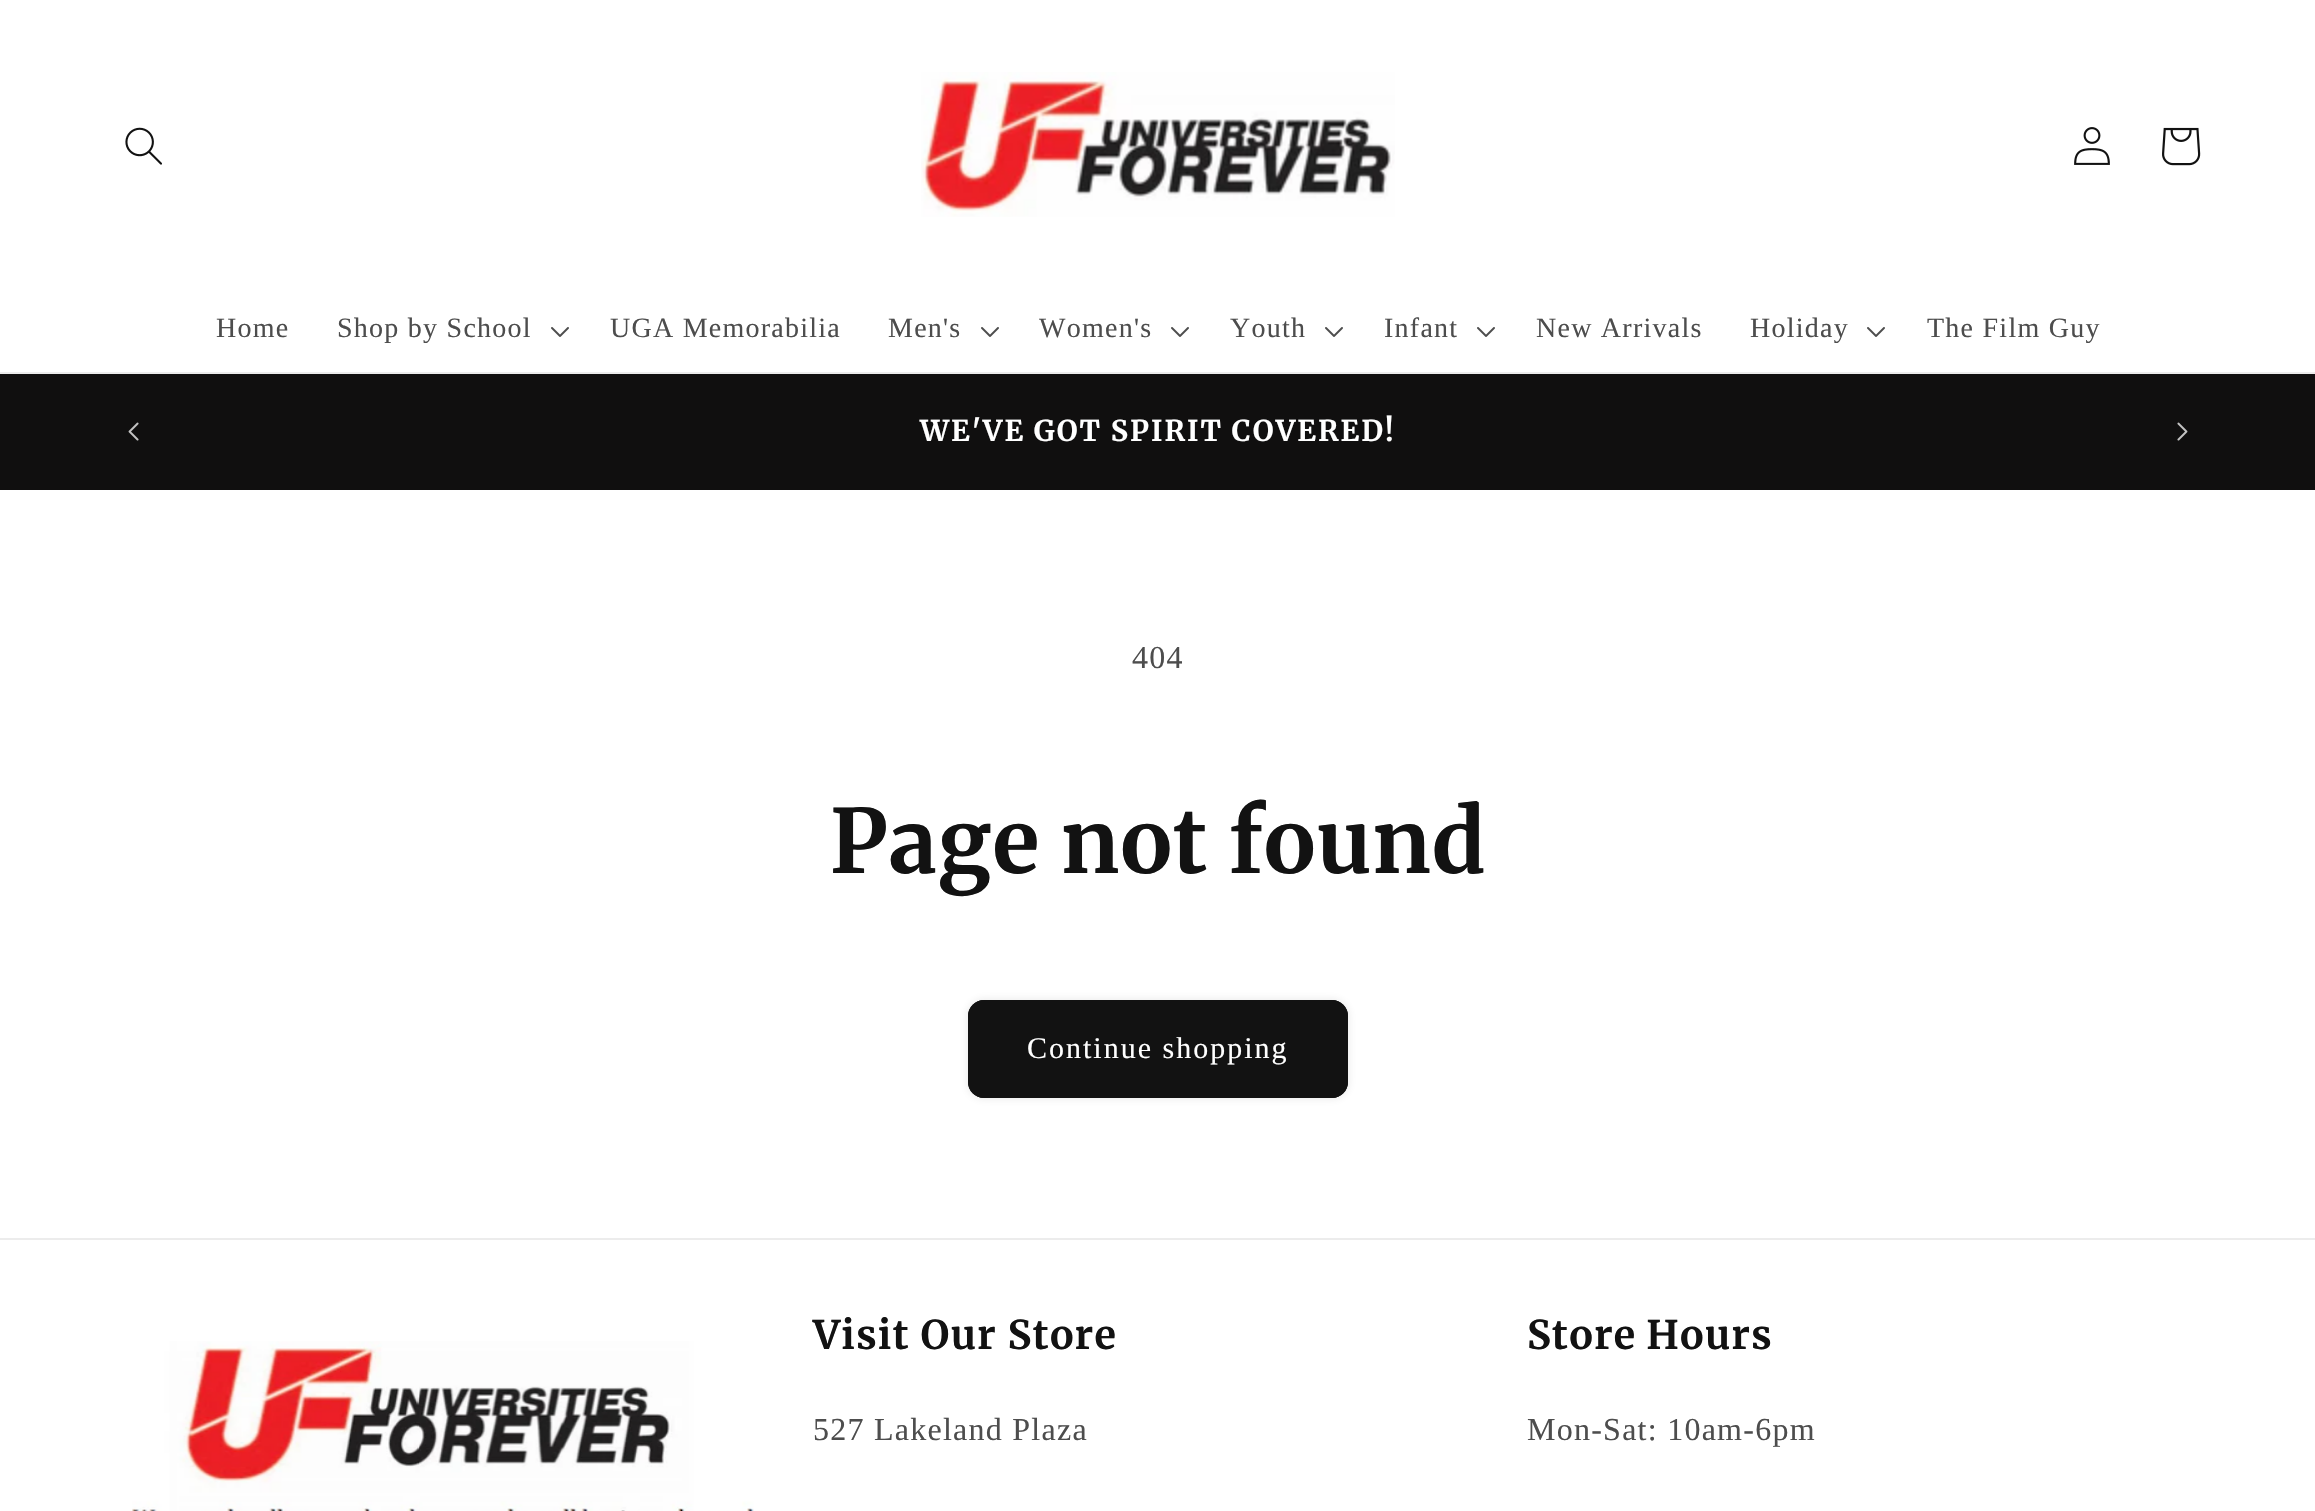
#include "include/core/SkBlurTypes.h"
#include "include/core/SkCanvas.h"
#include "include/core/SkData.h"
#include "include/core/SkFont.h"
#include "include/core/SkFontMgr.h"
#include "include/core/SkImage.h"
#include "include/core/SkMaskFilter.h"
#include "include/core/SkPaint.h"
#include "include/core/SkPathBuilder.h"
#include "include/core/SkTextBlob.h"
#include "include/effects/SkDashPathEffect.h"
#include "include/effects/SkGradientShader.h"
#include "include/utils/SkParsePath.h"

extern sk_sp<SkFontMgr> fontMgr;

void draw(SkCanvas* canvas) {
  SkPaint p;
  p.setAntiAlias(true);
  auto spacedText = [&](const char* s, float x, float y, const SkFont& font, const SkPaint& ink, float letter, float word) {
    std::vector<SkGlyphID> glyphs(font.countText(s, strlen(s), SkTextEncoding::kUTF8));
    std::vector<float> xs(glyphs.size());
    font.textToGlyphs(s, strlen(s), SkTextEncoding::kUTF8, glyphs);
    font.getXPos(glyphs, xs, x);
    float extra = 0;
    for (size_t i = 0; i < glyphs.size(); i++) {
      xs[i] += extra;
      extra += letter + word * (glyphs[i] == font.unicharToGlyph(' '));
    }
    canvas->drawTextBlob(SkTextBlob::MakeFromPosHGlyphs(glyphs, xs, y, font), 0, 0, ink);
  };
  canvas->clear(SK_ColorWHITE);
  p.setColor(SkColorSetRGB(236, 236, 236));
  canvas->drawRect(SkRect::MakeLTRB(0, 372, 2315, 374), p);
  canvas->drawImageRect(SkImages::DeferredFromEncodedData(SkData::MakeFromFileName("images/1.png")), SkRect::MakeLTRB(125, 127, 162, 165), SkSamplingOptions());
  canvas->drawImageRect(SkImages::DeferredFromEncodedData(SkData::MakeFromFileName("images/2.png")), SkRect::MakeLTRB(921, 72, 1395, 217), SkSamplingOptions());
  canvas->drawImageRect(SkImages::DeferredFromEncodedData(SkData::MakeFromFileName("images/3.png")), SkRect::MakeLTRB(2074, 127, 2110, 165), SkSamplingOptions());
  canvas->drawImageRect(SkImages::DeferredFromEncodedData(SkData::MakeFromFileName("images/4.png")), SkRect::MakeLTRB(2162, 127, 2201, 166), SkSamplingOptions());
  canvas->drawImageRect(SkImages::DeferredFromEncodedData(SkData::MakeFromFileName("images/5.png")), SkRect::MakeLTRB(551, 327, 569, 337), SkSamplingOptions());
  canvas->drawImageRect(SkImages::DeferredFromEncodedData(SkData::MakeFromFileName("images/5.png")), SkRect::MakeLTRB(981, 327, 999, 337), SkSamplingOptions());
  canvas->drawImageRect(SkImages::DeferredFromEncodedData(SkData::MakeFromFileName("images/5.png")), SkRect::MakeLTRB(1171, 327, 1189, 337), SkSamplingOptions());
  canvas->drawImageRect(SkImages::DeferredFromEncodedData(SkData::MakeFromFileName("images/5.png")), SkRect::MakeLTRB(1325, 327, 1343, 337), SkSamplingOptions());
  canvas->drawImageRect(SkImages::DeferredFromEncodedData(SkData::MakeFromFileName("images/5.png")), SkRect::MakeLTRB(1477, 327, 1495, 337), SkSamplingOptions());
  canvas->drawImageRect(SkImages::DeferredFromEncodedData(SkData::MakeFromFileName("images/5.png")), SkRect::MakeLTRB(1867, 327, 1885, 337), SkSamplingOptions());
  p.setColor(SkColorSetRGB(16, 15, 15));
  canvas->drawRect(SkRect::MakeLTRB(0, 374, 2315, 490), p);
  canvas->drawImageRect(SkImages::DeferredFromEncodedData(SkData::MakeFromFileName("images/6.png")), SkRect::MakeLTRB(128, 422, 139, 441), SkSamplingOptions());
  canvas->drawImageRect(SkImages::DeferredFromEncodedData(SkData::MakeFromFileName("images/7.png")), SkRect::MakeLTRB(2177, 422, 2188, 441), SkSamplingOptions());
  p.setColor(SkColorSetARGB(26, 18, 18, 18));
  p.setMaskFilter(SkMaskFilter::MakeBlur(kNormal_SkBlurStyle, 5));
  canvas->drawRoundRect(SkRect::MakeLTRB(968, 1000, 1348, 1098), 16, 16, p);
  p.setMaskFilter(nullptr);
  p.setColor(SkColorSetRGB(18, 18, 18));
  canvas->drawRoundRect(SkRect::MakeLTRB(968, 1000, 1348, 1098), 16, 16, p);
  p.setStyle(SkPaint::kStroke_Style);
  p.setStrokeWidth(4);
  canvas->drawRoundRect(SkRect::MakeLTRB(970, 1002, 1346, 1096), 14, 14, p);
  p.setStyle(SkPaint::kFill_Style);
  p.setColor(SkColorSetRGB(236, 236, 236));
  canvas->drawRect(SkRect::MakeLTRB(0, 1238, 2315, 1240), p);
  canvas->drawImageRect(SkImages::DeferredFromEncodedData(SkData::MakeFromFileName("images/8.png")), SkRect::MakeLTRB(132, 1341, 754, 1511), SkSamplingOptions());
  SkFont font1(fontMgr->matchFamilyStyle("Liberation Serif", SkFontStyle::Normal()), 28);
  font1.setSubpixel(true);
  p.setColor(SkColorSetRGB(77, 77, 77));
  spacedText("Home", 216, 337, font1, p, 1.25f, 0);
  spacedText("Shop by School", 337, 337, font1, p, 1.25f, 0);
  spacedText("UGA Memorabilia", 610, 337, font1, p, 1.25f, 0);
  spacedText("Men's", 888, 337, font1, p, 1.25f, 0);
  spacedText("Women's", 1039, 337, font1, p, 1.25f, 0);
  spacedText("Youth", 1230, 337, font1, p, 1.25f, 0);
  spacedText("Infant", 1384, 337, font1, p, 1.25f, 0);
  spacedText("New Arrivals", 1536, 337, font1, p, 1.25f, 0);
  spacedText("Holiday", 1750, 337, font1, p, 1.25f, 0);
  spacedText("The Film Guy", 1927, 337, font1, p, 1.25f, 0);
  SkFont font2(fontMgr->matchFamilyStyle("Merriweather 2", SkFontStyle::Bold()), 28.6f);
  font2.setSubpixel(true);
  p.setColor(SK_ColorWHITE);
  spacedText("WE'VE GOT SPIRIT COVERED!", 920, 441, font2, p, 2, 0);
  SkFont font3(fontMgr->matchFamilyStyle("Liberation Serif", SkFontStyle::Normal()), 32);
  font3.setSubpixel(true);
  p.setColor(SkColorSetRGB(77, 77, 77));
  spacedText("404", 1132, 668, font3, p, 1.25f, 0);
  SkFont font4(fontMgr->matchFamilyStyle("Merriweather", SkFontStyle::Bold()), 88);
  font4.setSubpixel(true);
  p.setColor(SkColorSetRGB(18, 18, 18));
  spacedText("Page not found", 830, 873, font4, p, 1.3f, 0);
  SkFont font5(fontMgr->matchFamilyStyle("Liberation Serif", SkFontStyle::Normal()), 30);
  font5.setSubpixel(true);
  p.setColor(SK_ColorWHITE);
  spacedText("Continue shopping", 1027, 1058, font5, p, 2, 0);
  SkFont font6(fontMgr->matchFamilyStyle("Merriweather 2", SkFontStyle::Bold()), 39.5f);
  font6.setSubpixel(true);
  p.setColor(SkColorSetRGB(18, 18, 18));
  spacedText("Visit Our Store", 813, 1349, font6, p, 1.3f, 0);
  p.setColor(SkColorSetRGB(77, 77, 77));
  spacedText("527 Lakeland Plaza", 813, 1440, font3, p, 1.25f, 0);
  p.setColor(SkColorSetRGB(18, 18, 18));
  spacedText("Store Hours", 1527, 1349, font6, p, 1.3f, -1);
  p.setColor(SkColorSetRGB(77, 77, 77));
  spacedText("Mon-Sat: 10am-6pm", 1527, 1440, font3, p, 1.25f, 0);
}
